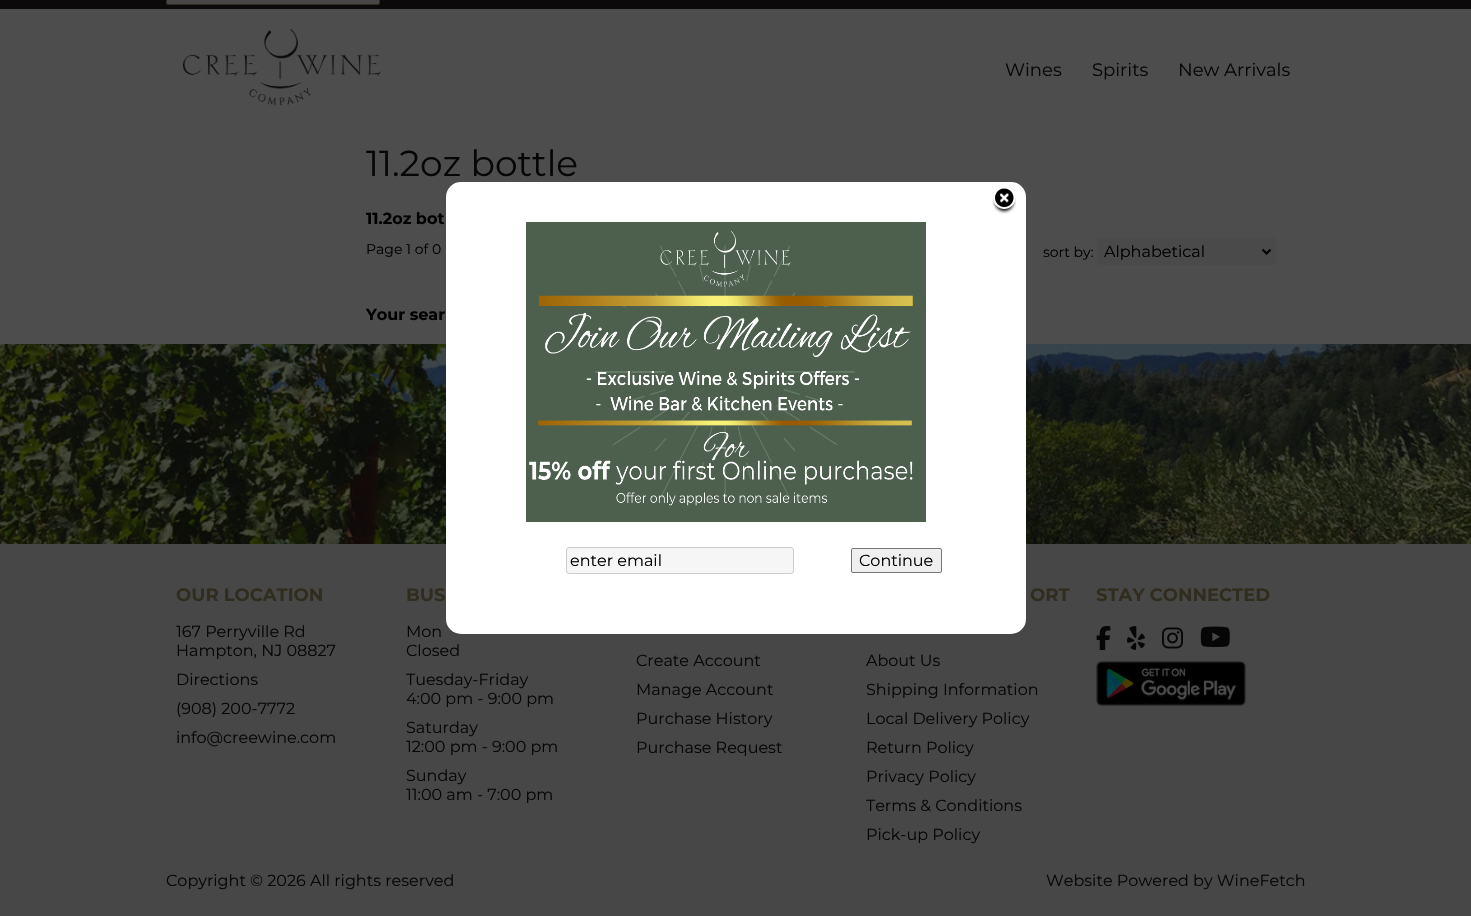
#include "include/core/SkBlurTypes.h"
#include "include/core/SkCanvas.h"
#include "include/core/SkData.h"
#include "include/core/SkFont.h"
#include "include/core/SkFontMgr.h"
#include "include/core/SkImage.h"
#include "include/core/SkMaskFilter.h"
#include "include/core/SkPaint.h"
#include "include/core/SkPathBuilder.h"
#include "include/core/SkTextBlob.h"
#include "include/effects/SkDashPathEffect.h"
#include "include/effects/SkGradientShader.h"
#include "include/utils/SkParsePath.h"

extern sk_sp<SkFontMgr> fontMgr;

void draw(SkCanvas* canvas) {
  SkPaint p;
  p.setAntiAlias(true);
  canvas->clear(SkColorSetRGB(77, 77, 77));
  p.setColor(SkColorSetRGB(11, 9, 10));
  canvas->drawRect(SkRect::MakeLTRB(0, 0, 1471, 9), p);
  p.setColor(SkColorSetRGB(71, 71, 71));
  canvas->drawRoundRect(SkRect::MakeLTRB(166.5f, -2.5f, 379.5f, 4.5f), 1.5f, 1.5f, p);
  p.setStyle(SkPaint::kStroke_Style);
  p.setStrokeWidth(1);
  p.setColor(SkColorSetRGB(48, 44, 30));
  canvas->drawRoundRect(SkRect::MakeLTRB(166.5f, -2.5f, 379.5f, 4.5f), 1.5f, 1.5f, p);
  canvas->drawImageRect(SkImages::DeferredFromEncodedData(SkData::MakeFromFileName("images/1.png")), SkRect::MakeLTRB(182, 29, 381, 106), SkSamplingOptions());
  p.setStyle(SkPaint::kFill_Style);
  p.setColor(SkColorSetRGB(74, 74, 74));
  canvas->drawRect(SkRect::MakeLTRB(1097, 238, 1276, 265), p);
  p.setStyle(SkPaint::kStroke_Style);
  p.setStrokeWidth(2);
  p.setColor(SK_ColorBLACK);
  canvas->drawPath(SkPathBuilder().moveTo(1262.5f, 249.5f).lineTo(1266.5f, 253.5f).lineTo(1270.5f, 249.5f).detach(), p);
  canvas->drawImageRect(SkImages::DeferredFromEncodedData(SkData::MakeFromFileName("images/2.png")), SkRect::MakeLTRB(0, 344, 1471, 544), SkSamplingOptions());
  p.setStyle(SkPaint::kFill_Style);
  p.setColor(SkColorSetRGB(71, 71, 71));
  canvas->drawRect(SkRect::MakeLTRB(0, 544, 1471, 916), p);
  p.setColor(SK_ColorWHITE);
  canvas->drawRoundRect(SkRect::MakeLTRB(446, 182, 1026, 634), 15, 15, p);
  canvas->drawImageRect(SkImages::DeferredFromEncodedData(SkData::MakeFromFileName("images/3.png")), SkRect::MakeLTRB(992, 188, 1016, 214), SkSamplingOptions());
  canvas->drawImageRect(SkImages::DeferredFromEncodedData(SkData::MakeFromFileName("images/4.png")), SkRect::MakeLTRB(526, 222, 926, 522), SkSamplingOptions());
  p.setColor(SkColorSetRGB(246, 246, 246));
  canvas->drawRoundRect(SkRect::MakeLTRB(566.5f, 547.5f, 793.5f, 573.5f), 2.5f, 2.5f, p);
  p.setStyle(SkPaint::kStroke_Style);
  p.setStrokeWidth(1);
  p.setColor(SkColorSetRGB(204, 204, 204));
  canvas->drawRoundRect(SkRect::MakeLTRB(566.5f, 547.5f, 793.5f, 573.5f), 2.5f, 2.5f, p);
  p.setStyle(SkPaint::kFill_Style);
  p.setColor(SkColorSetRGB(239, 239, 239));
  canvas->drawRoundRect(SkRect::MakeLTRB(851.5f, 548.5f, 941.5f, 572.5f), 1.5f, 1.5f, p);
  p.setStyle(SkPaint::kStroke_Style);
  p.setColor(SkColorSetRGB(118, 118, 118));
  canvas->drawRoundRect(SkRect::MakeLTRB(851.5f, 548.5f, 941.5f, 572.5f), 1.5f, 1.5f, p);
  canvas->drawImageRect(SkImages::DeferredFromEncodedData(SkData::MakeFromFileName("images/5.png")), SkRect::MakeLTRB(1096, 626, 1111, 650), SkSamplingOptions());
  canvas->drawImageRect(SkImages::DeferredFromEncodedData(SkData::MakeFromFileName("images/6.png")), SkRect::MakeLTRB(1127, 626, 1145, 650), SkSamplingOptions());
  canvas->drawImageRect(SkImages::DeferredFromEncodedData(SkData::MakeFromFileName("images/7.png")), SkRect::MakeLTRB(1162, 627, 1183, 649), SkSamplingOptions());
  canvas->drawImageRect(SkImages::DeferredFromEncodedData(SkData::MakeFromFileName("images/8.png")), SkRect::MakeLTRB(1200, 626, 1230, 647), SkSamplingOptions());
  canvas->drawImageRect(SkImages::DeferredFromEncodedData(SkData::MakeFromFileName("images/9.png")), SkRect::MakeLTRB(1096, 661, 1246, 706), SkSamplingOptions());
  SkFont font1(fontMgr->matchFamilyStyle("Montserrat", SkFontStyle::Normal()), 18);
  font1.setSubpixel(true);
  p.setStyle(SkPaint::kFill_Style);
  p.setColor(SkColorSetRGB(6, 6, 6));
  canvas->drawString("Wines", 1005, 76, font1, p);
  canvas->drawString("Spirits", 1092, 76, font1, p);
  canvas->drawString("New Arrivals", 1178, 76, font1, p);
  SkFont font2(fontMgr->matchFamilyStyle("Montserrat", SkFontStyle::Normal()), 36);
  font2.setSubpixel(true);
  canvas->drawString("11.2oz bottle", 366, 176, font2, p);
  SkFont font3(fontMgr->matchFamilyStyle("Montserrat", SkFontStyle::Bold()), 16);
  font3.setSubpixel(true);
  p.setColor(SK_ColorBLACK);
  canvas->drawString("11.2oz bot", 366, 224, font3, p);
  SkFont font4(fontMgr->matchFamilyStyle("Montserrat", SkFontStyle::Normal()), 14);
  font4.setSubpixel(true);
  canvas->drawString("Page 1 of 0", 366, 254, font4, p);
  canvas->drawString("sort by:", 1043, 257, font4, p);
  SkFont font5(fontMgr->matchFamilyStyle("Montserrat", SkFontStyle::Normal()), 16);
  font5.setSubpixel(true);
  canvas->drawString("Alphabetical", 1104, 257, font5, p);
  canvas->drawString("Your sear", 366, 320, font3, p);
  canvas->drawString("enter email", 570, 566, font5, p);
  canvas->drawString("Continue", 859, 566, font5, p);
  SkFont font6(fontMgr->matchFamilyStyle("Montserrat", SkFontStyle::Bold()), 18);
  font6.setSubpixel(true);
  p.setColor(SkColorSetRGB(48, 44, 30));
  canvas->drawString("OUR LOCATION", 176, 601, font6, p);
  p.setColor(SkColorSetRGB(6, 6, 6));
  canvas->drawString("167 Perryville Rd", 176, 637, font5, p);
  canvas->drawString("Hampton, NJ 08827", 176, 656, font5, p);
  canvas->drawString("Directions", 176, 685, font5, p);
  canvas->drawString("(908) 200-7772", 176, 714, font5, p);
  canvas->drawString("info@creewine.com", 176, 743, font5, p);
  p.setColor(SkColorSetRGB(48, 44, 30));
  canvas->drawString("BUS", 406, 601, font6, p);
  p.setColor(SkColorSetRGB(6, 6, 6));
  canvas->drawString("Mon", 406, 637, font5, p);
  canvas->drawString("Closed", 406, 656, font5, p);
  canvas->drawString("Tuesday-Friday", 406, 685, font5, p);
  canvas->drawString("4:00 pm - 9:00 pm", 406, 704, font5, p);
  canvas->drawString("Saturday", 406, 733, font5, p);
  canvas->drawString("12:00 pm - 9:00 pm", 406, 752, font5, p);
  canvas->drawString("Sunday", 406, 781, font5, p);
  canvas->drawString("11:00 am - 7:00 pm", 406, 800, font5, p);
  p.setColor(SkColorSetRGB(48, 44, 30));
  canvas->drawString("ORT", 1030, 601, font6, p);
  p.setColor(SkColorSetRGB(6, 6, 6));
  canvas->drawString("About Us", 866, 666, font5, p);
  canvas->drawString("Shipping Information", 866, 695, font5, p);
  canvas->drawString("Local Delivery Policy", 866, 724, font5, p);
  canvas->drawString("Return Policy", 866, 753, font5, p);
  canvas->drawString("Privacy Policy", 866, 782, font5, p);
  canvas->drawString("Terms & Conditions", 866, 811, font5, p);
  canvas->drawString("Pick-up Policy", 866, 840, font5, p);
  p.setColor(SkColorSetRGB(48, 44, 30));
  canvas->drawString("STAY CONNECTED", 1096, 601, font6, p);
  p.setColor(SkColorSetRGB(6, 6, 6));
  canvas->drawString("Create Account", 636, 666, font5, p);
  canvas->drawString("Manage Account", 636, 695, font5, p);
  canvas->drawString("Purchase History", 636, 724, font5, p);
  canvas->drawString("Purchase Request", 636, 753, font5, p);
  canvas->drawString("Copyright © 2026 All rights reserved", 166, 886, font5, p);
  canvas->drawString("Website Powered by WineFetch", 1046, 886, font5, p);
}
